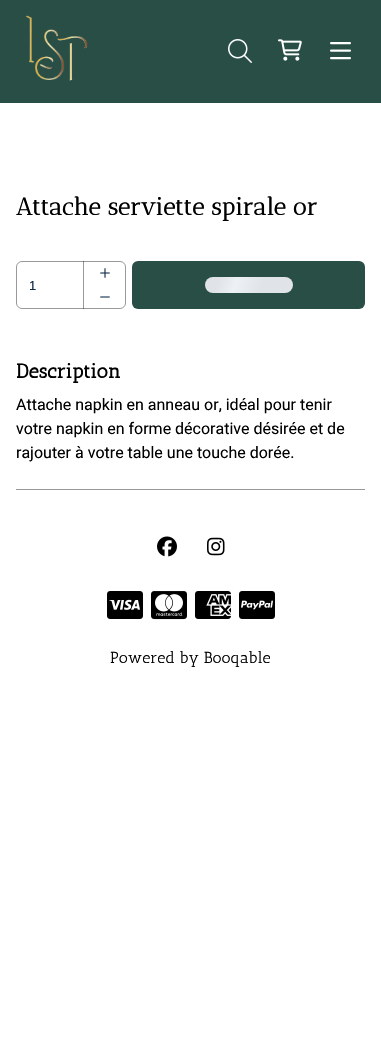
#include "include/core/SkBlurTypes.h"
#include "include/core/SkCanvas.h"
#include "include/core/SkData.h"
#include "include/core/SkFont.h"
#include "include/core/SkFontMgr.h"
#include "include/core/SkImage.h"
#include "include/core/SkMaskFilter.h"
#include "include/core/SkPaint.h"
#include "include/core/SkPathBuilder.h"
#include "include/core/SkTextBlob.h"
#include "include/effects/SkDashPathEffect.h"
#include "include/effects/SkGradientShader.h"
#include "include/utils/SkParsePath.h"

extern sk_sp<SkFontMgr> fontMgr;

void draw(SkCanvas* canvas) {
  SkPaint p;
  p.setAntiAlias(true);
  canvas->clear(SK_ColorWHITE);
  p.setColor(SkColorSetRGB(40, 78, 69));
  canvas->drawRect(SkRect::MakeLTRB(0, 0, 381, 103), p);
  canvas->drawImageRect(SkImages::DeferredFromEncodedData(SkData::MakeFromFileName("images/1.png")), SkRect::MakeLTRB(25, 15, 88, 81), SkSamplingOptions());
  canvas->drawImageRect(SkImages::DeferredFromEncodedData(SkData::MakeFromFileName("images/2.png")), SkRect::MakeLTRB(228, 39, 252, 63), SkSamplingOptions());
  canvas->drawImageRect(SkImages::DeferredFromEncodedData(SkData::MakeFromFileName("images/3.png")), SkRect::MakeLTRB(278, 39, 302, 61), SkSamplingOptions());
  canvas->drawImageRect(SkImages::DeferredFromEncodedData(SkData::MakeFromFileName("images/4.png")), SkRect::MakeLTRB(330, 42, 351, 60), SkSamplingOptions());
  p.setStyle(SkPaint::kStroke_Style);
  p.setStrokeWidth(1);
  p.setColor(SkColorSetRGB(153, 153, 153));
  canvas->drawRoundRect(SkRect::MakeLTRB(16.5f, 261.5f, 125.5f, 308.5f), 5.5f, 5.5f, p);
  p.setStyle(SkPaint::kFill_Style);
  p.setColor(SkColorSetARGB(102, 0, 0, 0));
  canvas->drawRect(SkRect::MakeLTRB(83, 261, 84, 309), p);
  canvas->drawImageRect(SkImages::DeferredFromEncodedData(SkData::MakeFromFileName("images/5.png")), SkRect::MakeLTRB(100, 268, 110, 278), SkSamplingOptions());
  canvas->drawImageRect(SkImages::DeferredFromEncodedData(SkData::MakeFromFileName("images/6.png")), SkRect::MakeLTRB(100, 296, 110, 298), SkSamplingOptions());
  p.setColor(SkColorSetRGB(40, 78, 69));
  canvas->drawRoundRect(SkRect::MakeLTRB(132, 261, 365, 309), 6, 6, p);
  {
    const SkColor colors[] = {SkColorSetRGB(224, 228, 232), SkColorSetRGB(237, 241, 245), SkColorSetRGB(224, 228, 232)};
    const float stops[] = {0.08f, 0.18f, 0.33f};
    const SkPoint ends[] = {{213, 256}, {373, 314}};
    p.setShader(SkGradientShader::MakeLinear(ends, colors, stops, 3, SkTileMode::kClamp));
    p.setAlpha(255);
  }
  canvas->drawRoundRect(SkRect::MakeLTRB(205, 277, 293, 293), 8, 8, p);
  p.setShader(nullptr);
  p.setColor(SkColorSetRGB(153, 153, 153));
  canvas->drawRect(SkRect::MakeLTRB(16, 489, 365, 490), p);
  canvas->drawImageRect(SkImages::DeferredFromEncodedData(SkData::MakeFromFileName("images/7.png")), SkRect::MakeLTRB(157, 536, 177, 557), SkSamplingOptions());
  canvas->drawImageRect(SkImages::DeferredFromEncodedData(SkData::MakeFromFileName("images/8.png")), SkRect::MakeLTRB(207, 537, 225, 556), SkSamplingOptions());
  canvas->drawImageRect(SkImages::DeferredFromEncodedData(SkData::MakeFromFileName("images/9.png")), SkRect::MakeLTRB(107, 591, 143, 619), SkSamplingOptions());
  canvas->drawImageRect(SkImages::DeferredFromEncodedData(SkData::MakeFromFileName("images/10.png")), SkRect::MakeLTRB(151, 591, 187, 620), SkSamplingOptions());
  canvas->drawImageRect(SkImages::DeferredFromEncodedData(SkData::MakeFromFileName("images/11.png")), SkRect::MakeLTRB(195, 591, 231, 619), SkSamplingOptions());
  canvas->drawImageRect(SkImages::DeferredFromEncodedData(SkData::MakeFromFileName("images/12.png")), SkRect::MakeLTRB(239, 591, 275, 619), SkSamplingOptions());
  SkFont font1(fontMgr->matchFamilyStyle("Antic Didone", SkFontStyle::Bold()), 24);
  font1.setSubpixel(true);
  p.setColor(SK_ColorBLACK);
  canvas->drawString("Attache serviette spirale or", 16, 215, font1, p);
  SkFont font2(fontMgr->matchFamilyStyle("Liberation Sans", SkFontStyle::Normal()), 13);
  font2.setSubpixel(true);
  p.setColor(SkColorSetRGB(12, 39, 71));
  canvas->drawString("1", 29, 290, font2, p);
  SkFont font3(fontMgr->matchFamilyStyle("Antic Slab", SkFontStyle::Bold()), 20);
  font3.setSubpixel(true);
  p.setColor(SK_ColorBLACK);
  canvas->drawString("Description", 16, 378, font3, p);
  SkFont font4(fontMgr->matchFamilyStyle("Roboto", SkFontStyle::Normal()), 16);
  font4.setSubpixel(true);
  canvas->drawString("Attache napkin en anneau or, idéal pour tenir", 16, 410, font4, p);
  canvas->drawString("votre napkin en forme décorative désirée et de", 16, 434, font4, p);
  canvas->drawString("rajouter à votre table une touche dorée.", 16, 458, font4, p);
  SkFont font5(fontMgr->matchFamilyStyle("Antic Slab", SkFontStyle::Normal()), 16);
  font5.setSubpixel(true);
  canvas->drawString("Powered by Booqable", 110, 663, font5, p);
}
